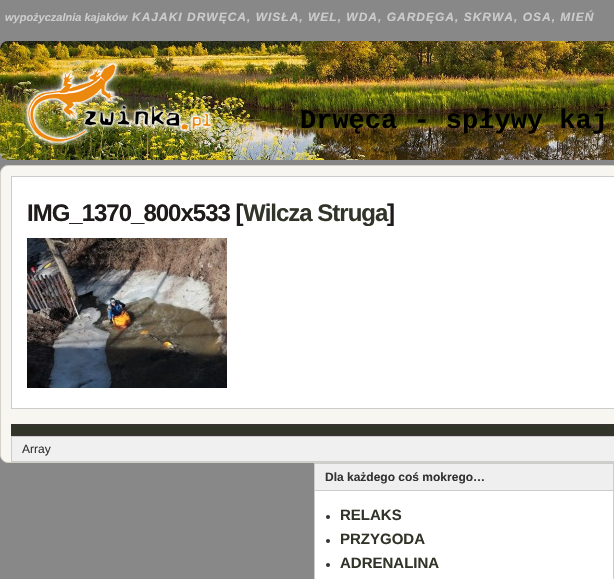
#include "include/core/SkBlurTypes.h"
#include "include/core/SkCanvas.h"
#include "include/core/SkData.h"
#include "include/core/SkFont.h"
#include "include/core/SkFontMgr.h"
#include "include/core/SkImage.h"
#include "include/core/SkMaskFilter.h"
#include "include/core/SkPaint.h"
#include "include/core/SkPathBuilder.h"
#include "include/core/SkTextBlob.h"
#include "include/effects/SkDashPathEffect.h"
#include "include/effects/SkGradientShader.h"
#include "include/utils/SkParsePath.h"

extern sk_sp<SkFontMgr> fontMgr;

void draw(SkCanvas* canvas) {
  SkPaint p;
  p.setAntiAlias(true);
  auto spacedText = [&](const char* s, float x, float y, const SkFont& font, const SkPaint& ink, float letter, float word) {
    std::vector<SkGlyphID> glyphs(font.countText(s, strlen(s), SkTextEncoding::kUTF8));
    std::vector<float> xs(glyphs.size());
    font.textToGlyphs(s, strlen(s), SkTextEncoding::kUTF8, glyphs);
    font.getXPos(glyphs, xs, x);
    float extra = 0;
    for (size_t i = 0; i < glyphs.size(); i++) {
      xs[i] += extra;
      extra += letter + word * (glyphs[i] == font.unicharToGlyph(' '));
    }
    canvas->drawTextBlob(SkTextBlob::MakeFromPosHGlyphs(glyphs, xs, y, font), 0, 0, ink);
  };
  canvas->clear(SkColorSetRGB(136, 136, 136));
  canvas->drawImageRect(SkImages::DeferredFromEncodedData(SkData::MakeFromFileName("images/1.png")), SkRect::MakeLTRB(0, 41, 614, 160), SkSamplingOptions());
  canvas->drawImageRect(SkImages::DeferredFromEncodedData(SkData::MakeFromFileName("images/2.png")), SkRect::MakeLTRB(20, 61, 214, 145), SkSamplingOptions());
  p.setColor(SkColorSetRGB(247, 246, 240));
  canvas->drawRoundRect(SkRect::MakeLTRB(0.5f, 165.5f, 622.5f, 462.5f), 7.5f, 7.5f, p);
  p.setStyle(SkPaint::kStroke_Style);
  p.setStrokeWidth(1);
  p.setColor(SkColorSetRGB(211, 209, 199));
  canvas->drawRoundRect(SkRect::MakeLTRB(0.5f, 165.5f, 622.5f, 462.5f), 7.5f, 7.5f, p);
  p.setStyle(SkPaint::kFill_Style);
  p.setColor(SK_ColorWHITE);
  canvas->drawRect(SkRect::MakeLTRB(11.5f, 176.5f, 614.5f, 408.5f), p);
  p.setStyle(SkPaint::kStroke_Style);
  p.setColor(SkColorSetRGB(204, 204, 204));
  canvas->drawRect(SkRect::MakeLTRB(11.5f, 176.5f, 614.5f, 408.5f), p);
  canvas->drawImageRect(SkImages::DeferredFromEncodedData(SkData::MakeFromFileName("images/3.png")), SkRect::MakeLTRB(27, 238, 227, 388), SkSamplingOptions());
  p.setStyle(SkPaint::kFill_Style);
  p.setColor(SkColorSetRGB(49, 52, 40));
  canvas->drawRect(SkRect::MakeLTRB(11.5f, 424.5f, 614.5f, 435.5f), p);
  p.setStyle(SkPaint::kStroke_Style);
  p.setColor(SkColorSetRGB(56, 51, 50));
  canvas->drawRect(SkRect::MakeLTRB(11.5f, 424.5f, 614.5f, 435.5f), p);
  p.setStyle(SkPaint::kFill_Style);
  p.setColor(SkColorSetRGB(240, 240, 240));
  canvas->drawRect(SkRect::MakeLTRB(11.5f, 436.5f, 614.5f, 461.5f), p);
  p.setStyle(SkPaint::kStroke_Style);
  p.setColor(SkColorSetRGB(204, 204, 204));
  canvas->drawRect(SkRect::MakeLTRB(11.5f, 436.5f, 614.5f, 461.5f), p);
  p.setStyle(SkPaint::kFill_Style);
  p.setColor(SkColorSetRGB(239, 239, 239));
  canvas->drawRect(SkRect::MakeLTRB(314.5f, 463.5f, 613.5f, 490.5f), p);
  p.setStyle(SkPaint::kStroke_Style);
  p.setColor(SkColorSetRGB(204, 204, 204));
  canvas->drawRect(SkRect::MakeLTRB(314.5f, 463.5f, 613.5f, 490.5f), p);
  p.setStyle(SkPaint::kFill_Style);
  p.setColor(SK_ColorWHITE);
  canvas->drawRect(SkRect::MakeLTRB(314.5f, 490.5f, 613.5f, 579.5f), p);
  p.setStyle(SkPaint::kStroke_Style);
  p.setColor(SkColorSetRGB(204, 204, 204));
  canvas->drawRect(SkRect::MakeLTRB(314.5f, 490.5f, 613.5f, 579.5f), p);
  p.setStyle(SkPaint::kFill_Style);
  p.setColor(SkColorSetRGB(51, 51, 51));
  canvas->drawCircle(328, 517, 2, p);
  canvas->drawCircle(328, 541, 2, p);
  canvas->drawCircle(328, 565, 2, p);
  SkFont font1(fontMgr->matchFamilyStyle("Liberation Sans", SkFontStyle::BoldItalic()), 11);
  font1.setSubpixel(true);
  p.setColor(SkColorSetRGB(204, 204, 204));
  canvas->drawString("wypożyczalnia kajaków", 5, 21, font1, p);
  SkFont font2(fontMgr->matchFamilyStyle("Liberation Sans", SkFontStyle::BoldItalic()), 12);
  font2.setSubpixel(true);
  spacedText("KAJAKI DRWĘCA, WISŁA, WEL, WDA, GARDĘGA, SKRWA, OSA, MIEŃ", 132, 21, font2, p, 1, 0);
  SkFont font3(fontMgr->matchFamilyStyle("Liberation Mono", SkFontStyle::Bold()), 27);
  font3.setSubpixel(true);
  p.setColor(SK_ColorBLACK);
  canvas->drawString("Drwęca - spływy kaj", 300, 128, font3, p);
  SkFont font4(fontMgr->matchFamilyStyle("Liberation Sans", SkFontStyle::Bold()), 24);
  font4.setSubpixel(true);
  p.setColor(SkColorSetRGB(30, 27, 26));
  spacedText("IMG_1370_800x533 [", 27, 221, font4, p, -1, 0);
  p.setColor(SkColorSetRGB(49, 52, 40));
  spacedText("Wilcza Struga", 243, 221, font4, p, -1, 0);
  p.setColor(SkColorSetRGB(30, 27, 26));
  spacedText("]", 387, 221, font4, p, -1, 0);
  SkFont font5(fontMgr->matchFamilyStyle("Liberation Sans", SkFontStyle::Normal()), 12);
  font5.setSubpixel(true);
  p.setColor(SkColorSetRGB(51, 51, 51));
  canvas->drawString("Array", 22, 453, font5, p);
  SkFont font6(fontMgr->matchFamilyStyle("Liberation Sans", SkFontStyle::Bold()), 12);
  font6.setSubpixel(true);
  canvas->drawString("Dla każdego coś mokrego…", 325, 481, font6, p);
  SkFont font7(fontMgr->matchFamilyStyle("Liberation Sans", SkFontStyle::Bold()), 15);
  font7.setSubpixel(true);
  p.setColor(SkColorSetRGB(49, 52, 40));
  canvas->drawString("RELAKS", 340, 520, font7, p);
  canvas->drawString("PRZYGODA", 340, 544, font7, p);
  canvas->drawString("ADRENALINA", 340, 568, font7, p);
}
